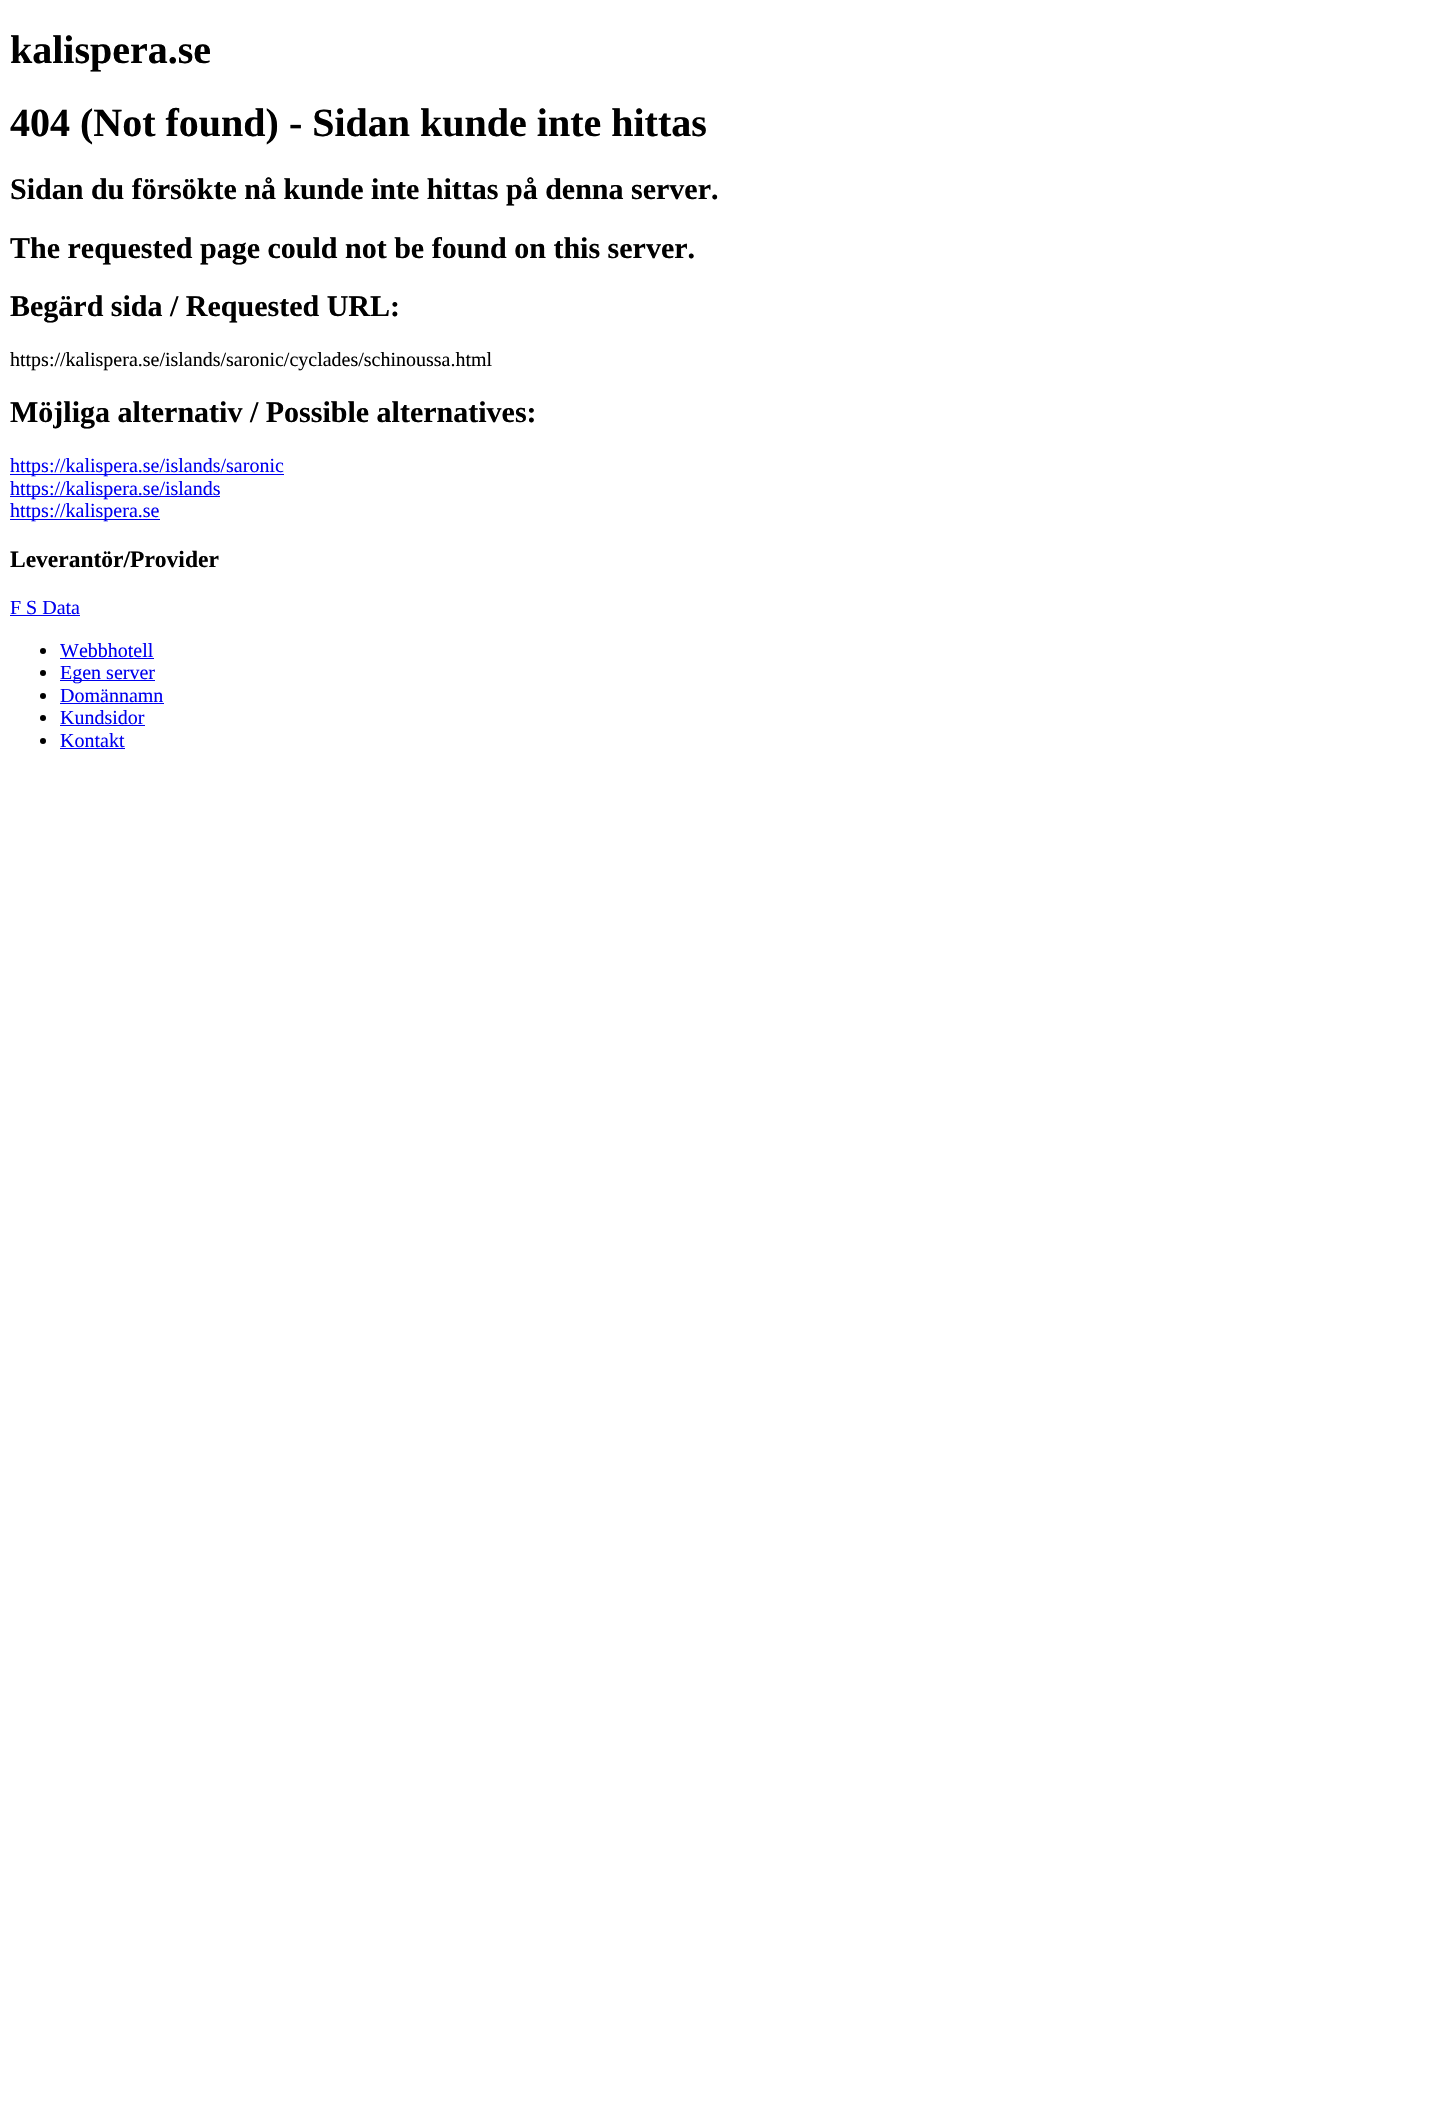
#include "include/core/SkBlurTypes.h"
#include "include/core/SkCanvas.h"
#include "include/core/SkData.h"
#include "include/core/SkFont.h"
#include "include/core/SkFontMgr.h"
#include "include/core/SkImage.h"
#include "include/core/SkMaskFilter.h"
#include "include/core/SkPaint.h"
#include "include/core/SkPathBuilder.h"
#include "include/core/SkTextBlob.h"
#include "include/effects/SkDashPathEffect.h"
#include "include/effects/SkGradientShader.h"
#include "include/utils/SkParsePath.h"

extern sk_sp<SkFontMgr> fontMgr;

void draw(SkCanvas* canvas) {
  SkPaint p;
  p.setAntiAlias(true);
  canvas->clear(SK_ColorWHITE);
  p.setColor(SkColorSetRGB(0, 0, 238));
  canvas->drawRect(SkRect::MakeLTRB(10, 474, 284, 475), p);
  canvas->drawRect(SkRect::MakeLTRB(10, 496, 220, 497), p);
  canvas->drawRect(SkRect::MakeLTRB(10, 519, 160, 520), p);
  canvas->drawRect(SkRect::MakeLTRB(10, 615, 80, 616), p);
  p.setColor(SK_ColorBLACK);
  canvas->drawCircle(43, 651, 3, p);
  p.setColor(SkColorSetRGB(0, 0, 238));
  canvas->drawRect(SkRect::MakeLTRB(60, 658, 154, 659), p);
  p.setColor(SK_ColorBLACK);
  canvas->drawCircle(43, 673, 3, p);
  p.setColor(SkColorSetRGB(0, 0, 238));
  canvas->drawRect(SkRect::MakeLTRB(60, 680, 155, 681), p);
  p.setColor(SK_ColorBLACK);
  canvas->drawCircle(43, 696, 3, p);
  p.setColor(SkColorSetRGB(0, 0, 238));
  canvas->drawRect(SkRect::MakeLTRB(60, 703, 164, 704), p);
  p.setColor(SK_ColorBLACK);
  canvas->drawCircle(43, 718, 3, p);
  p.setColor(SkColorSetRGB(0, 0, 238));
  canvas->drawRect(SkRect::MakeLTRB(60, 725, 145, 726), p);
  p.setColor(SK_ColorBLACK);
  canvas->drawCircle(43, 741, 3, p);
  p.setColor(SkColorSetRGB(0, 0, 238));
  canvas->drawRect(SkRect::MakeLTRB(60, 748, 125, 749), p);
  SkFont font1(fontMgr->matchFamilyStyle("Liberation Serif", SkFontStyle::Bold()), 40);
  font1.setSubpixel(true);
  p.setColor(SK_ColorBLACK);
  canvas->drawString("kalispera.se", 10, 63, font1, p);
  canvas->drawString("404 (Not found) - Sidan kunde inte hittas", 10, 136, font1, p);
  SkFont font2(fontMgr->matchFamilyStyle("Liberation Serif", SkFontStyle::Bold()), 30);
  font2.setSubpixel(true);
  canvas->drawString("Sidan du försökte nå kunde inte hittas på denna server.", 10, 199, font2, p);
  canvas->drawString("The requested page could not be found on this server.", 10, 258, font2, p);
  canvas->drawString("Begärd sida / Requested URL:", 10, 316, font2, p);
  SkFont font3(fontMgr->matchFamilyStyle("Liberation Serif", SkFontStyle::Normal()), 20);
  font3.setSubpixel(true);
  canvas->drawString("https://kalispera.se/islands/saronic/cyclades/schinoussa.html", 10, 366, font3, p);
  canvas->drawString("Möjliga alternativ / Possible alternatives:", 10, 422, font2, p);
  p.setColor(SkColorSetRGB(0, 0, 238));
  canvas->drawString("https://kalispera.se/islands/saronic", 10, 472, font3, p);
  canvas->drawString("https://kalispera.se/islands", 10, 495, font3, p);
  canvas->drawString("https://kalispera.se", 10, 517, font3, p);
  SkFont font4(fontMgr->matchFamilyStyle("Liberation Serif", SkFontStyle::Bold()), 23.5f);
  font4.setSubpixel(true);
  p.setColor(SK_ColorBLACK);
  canvas->drawString("Leverantör/Provider", 10, 567, font4, p);
  p.setColor(SkColorSetRGB(0, 0, 238));
  canvas->drawString("F S Data", 10, 614, font3, p);
  canvas->drawString("Webbhotell", 60, 657, font3, p);
  canvas->drawString("Egen server", 60, 679, font3, p);
  canvas->drawString("Domännamn", 60, 702, font3, p);
  canvas->drawString("Kundsidor", 60, 724, font3, p);
  canvas->drawString("Kontakt", 60, 747, font3, p);
}
